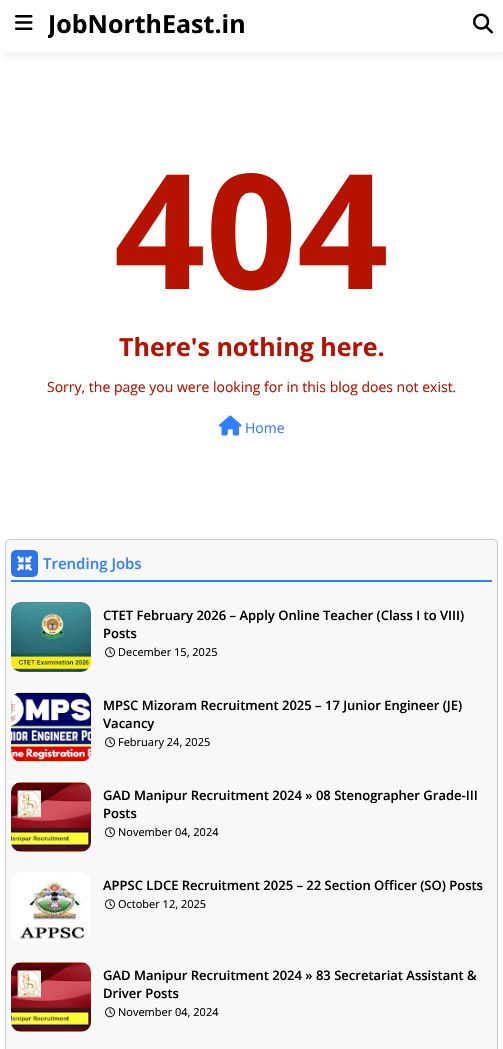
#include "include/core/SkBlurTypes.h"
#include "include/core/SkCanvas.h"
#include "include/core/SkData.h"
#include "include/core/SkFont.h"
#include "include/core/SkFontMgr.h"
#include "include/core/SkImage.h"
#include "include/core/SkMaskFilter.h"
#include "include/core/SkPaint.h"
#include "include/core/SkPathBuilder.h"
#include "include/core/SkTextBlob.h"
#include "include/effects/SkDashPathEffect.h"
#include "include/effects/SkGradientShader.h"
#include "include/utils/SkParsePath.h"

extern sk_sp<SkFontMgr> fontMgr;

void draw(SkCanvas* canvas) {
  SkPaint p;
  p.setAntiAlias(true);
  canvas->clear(SK_ColorWHITE);
  canvas->save();
  canvas->clipRect(SkRect::MakeLTRB(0, 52, 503, 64));
  p.setColor(SkColorSetARGB(122, 224, 223, 223));
  p.setMaskFilter(SkMaskFilter::MakeBlur(kNormal_SkBlurStyle, 4));
  canvas->drawRect(SkRect::MakeLTRB(5, 1, 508, 57), p);
  p.setMaskFilter(nullptr);
  canvas->restore();
  canvas->drawImageRect(SkImages::DeferredFromEncodedData(SkData::MakeFromFileName("images/1.png")), SkRect::MakeLTRB(15, 15, 33, 30), SkSamplingOptions());
  canvas->drawImageRect(SkImages::DeferredFromEncodedData(SkData::MakeFromFileName("images/2.png")), SkRect::MakeLTRB(473, 13, 493, 34), SkSamplingOptions());
  canvas->drawImageRect(SkImages::DeferredFromEncodedData(SkData::MakeFromFileName("images/3.png")), SkRect::MakeLTRB(219, 415, 242, 436), SkSamplingOptions());
  p.setColor(SkColorSetRGB(248, 248, 248));
  canvas->drawRoundRect(SkRect::MakeLTRB(5, 539, 498, 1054), 5, 5, p);
  p.setStyle(SkPaint::kStroke_Style);
  p.setStrokeWidth(1);
  p.setColor(SkColorSetARGB(48, 0, 0, 0));
  canvas->drawRoundRect(SkRect::MakeLTRB(5.5f, 539.5f, 497.5f, 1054.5f), 4.5f, 4.5f, p);
  p.setStyle(SkPaint::kFill_Style);
  p.setColor(SkColorSetRGB(50, 128, 255));
  canvas->drawRect(SkRect::MakeLTRB(11, 580, 492, 582), p);
  p.setColor(SkColorSetRGB(45, 116, 231));
  canvas->drawRoundRect(SkRect::MakeLTRB(11, 550, 38, 577), 5, 5, p);
  canvas->drawImageRect(SkImages::DeferredFromEncodedData(SkData::MakeFromFileName("images/4.png")), SkRect::MakeLTRB(17, 555, 32, 571), SkSamplingOptions());
  p.setColor(SkColorSetRGB(241, 241, 241));
  canvas->drawRoundRect(SkRect::MakeLTRB(11, 602, 91, 672), 10, 10, p);
  canvas->drawImageRect(SkImages::DeferredFromEncodedData(SkData::MakeFromFileName("images/5.png")), SkRect::MakeLTRB(11, 602, 91, 672), SkSamplingOptions());
  canvas->drawImageRect(SkImages::DeferredFromEncodedData(SkData::MakeFromFileName("images/6.png")), SkRect::MakeLTRB(105, 647, 115, 658), SkSamplingOptions());
  canvas->drawRoundRect(SkRect::MakeLTRB(11, 692, 91, 762), 10, 10, p);
  canvas->drawImageRect(SkImages::DeferredFromEncodedData(SkData::MakeFromFileName("images/7.png")), SkRect::MakeLTRB(11, 692, 91, 762), SkSamplingOptions());
  canvas->drawImageRect(SkImages::DeferredFromEncodedData(SkData::MakeFromFileName("images/6.png")), SkRect::MakeLTRB(105, 737, 115, 748), SkSamplingOptions());
  canvas->drawRoundRect(SkRect::MakeLTRB(11, 782, 91, 852), 10, 10, p);
  canvas->drawImageRect(SkImages::DeferredFromEncodedData(SkData::MakeFromFileName("images/8.png")), SkRect::MakeLTRB(11, 782, 91, 852), SkSamplingOptions());
  canvas->drawImageRect(SkImages::DeferredFromEncodedData(SkData::MakeFromFileName("images/6.png")), SkRect::MakeLTRB(105, 827, 115, 838), SkSamplingOptions());
  canvas->drawRoundRect(SkRect::MakeLTRB(11, 872, 91, 942), 10, 10, p);
  canvas->drawImageRect(SkImages::DeferredFromEncodedData(SkData::MakeFromFileName("images/9.png")), SkRect::MakeLTRB(11, 872, 91, 942), SkSamplingOptions());
  canvas->drawImageRect(SkImages::DeferredFromEncodedData(SkData::MakeFromFileName("images/6.png")), SkRect::MakeLTRB(105, 899, 115, 910), SkSamplingOptions());
  canvas->drawRoundRect(SkRect::MakeLTRB(11, 962, 91, 1032), 10, 10, p);
  canvas->drawImageRect(SkImages::DeferredFromEncodedData(SkData::MakeFromFileName("images/10.png")), SkRect::MakeLTRB(11, 962, 91, 1032), SkSamplingOptions());
  canvas->drawImageRect(SkImages::DeferredFromEncodedData(SkData::MakeFromFileName("images/6.png")), SkRect::MakeLTRB(105, 1007, 115, 1018), SkSamplingOptions());
  canvas->save();
  canvas->clipRect(SkRect::MakeLTRB(48, 8, 245, 38));
  SkFont font1(fontMgr->matchFamilyStyle("Open Sans", SkFontStyle::Bold()), 25);
  font1.setSubpixel(true);
  p.setColor(SK_ColorBLACK);
  canvas->drawString("JobNorthEast.in", 48, 33, font1, p);
  canvas->restore();
  SkFont font2(fontMgr->matchFamilyStyle("Open Sans", SkFontStyle::Bold()), 160);
  font2.setSubpixel(true);
  p.setColor(SkColorSetRGB(181, 18, 0));
  canvas->drawString("404", 114, 289, font2, p);
  canvas->drawString("There's nothing here.", 119, 356, font1, p);
  SkFont font3(fontMgr->matchFamilyStyle("Open Sans", SkFontStyle::Normal()), 14);
  font3.setSubpixel(true);
  canvas->drawString("Sorry, the page you were looking for in this blog does not exist.", 47, 392, font3, p);
  p.setColor(SkColorSetRGB(50, 128, 255));
  canvas->drawString("Home", 245, 433, font3, p);
  SkFont font4(fontMgr->matchFamilyStyle("Open Sans", SkFontStyle(600, SkFontStyle::kNormal_Width, SkFontStyle::kUpright_Slant)), 15);
  font4.setSubpixel(true);
  canvas->drawString("Trending Jobs", 43, 569, font4, p);
  SkFont font5(fontMgr->matchFamilyStyle("Open Sans", SkFontStyle(600, SkFontStyle::kNormal_Width, SkFontStyle::kUpright_Slant)), 13);
  font5.setSubpixel(true);
  p.setColor(SK_ColorBLACK);
  canvas->drawString("CTET February 2026 – Apply Online Teacher (Class I to VIII)", 103, 620, font5, p);
  canvas->drawString("Posts", 103, 638, font5, p);
  SkFont font6(fontMgr->matchFamilyStyle("Open Sans", SkFontStyle::Normal()), 11);
  font6.setSubpixel(true);
  canvas->drawString("December 15, 2025", 118, 656, font6, p);
  canvas->drawString("MPSC Mizoram Recruitment 2025 – 17 Junior Engineer (JE)", 103, 710, font5, p);
  canvas->drawString("Vacancy", 103, 728, font5, p);
  canvas->drawString("February 24, 2025", 118, 746, font6, p);
  canvas->drawString("GAD Manipur Recruitment 2024 » 08 Stenographer Grade-III", 103, 800, font5, p);
  canvas->drawString("Posts", 103, 818, font5, p);
  canvas->drawString("November 04, 2024", 118, 836, font6, p);
  canvas->drawString("APPSC LDCE Recruitment 2025 – 22 Section Officer (SO) Posts", 103, 890, font5, p);
  canvas->drawString("October 12, 2025", 118, 908, font6, p);
  canvas->drawString("GAD Manipur Recruitment 2024 » 83 Secretariat Assistant &", 103, 980, font5, p);
  canvas->drawString("Driver Posts", 103, 998, font5, p);
  canvas->drawString("November 04, 2024", 118, 1016, font6, p);
}
